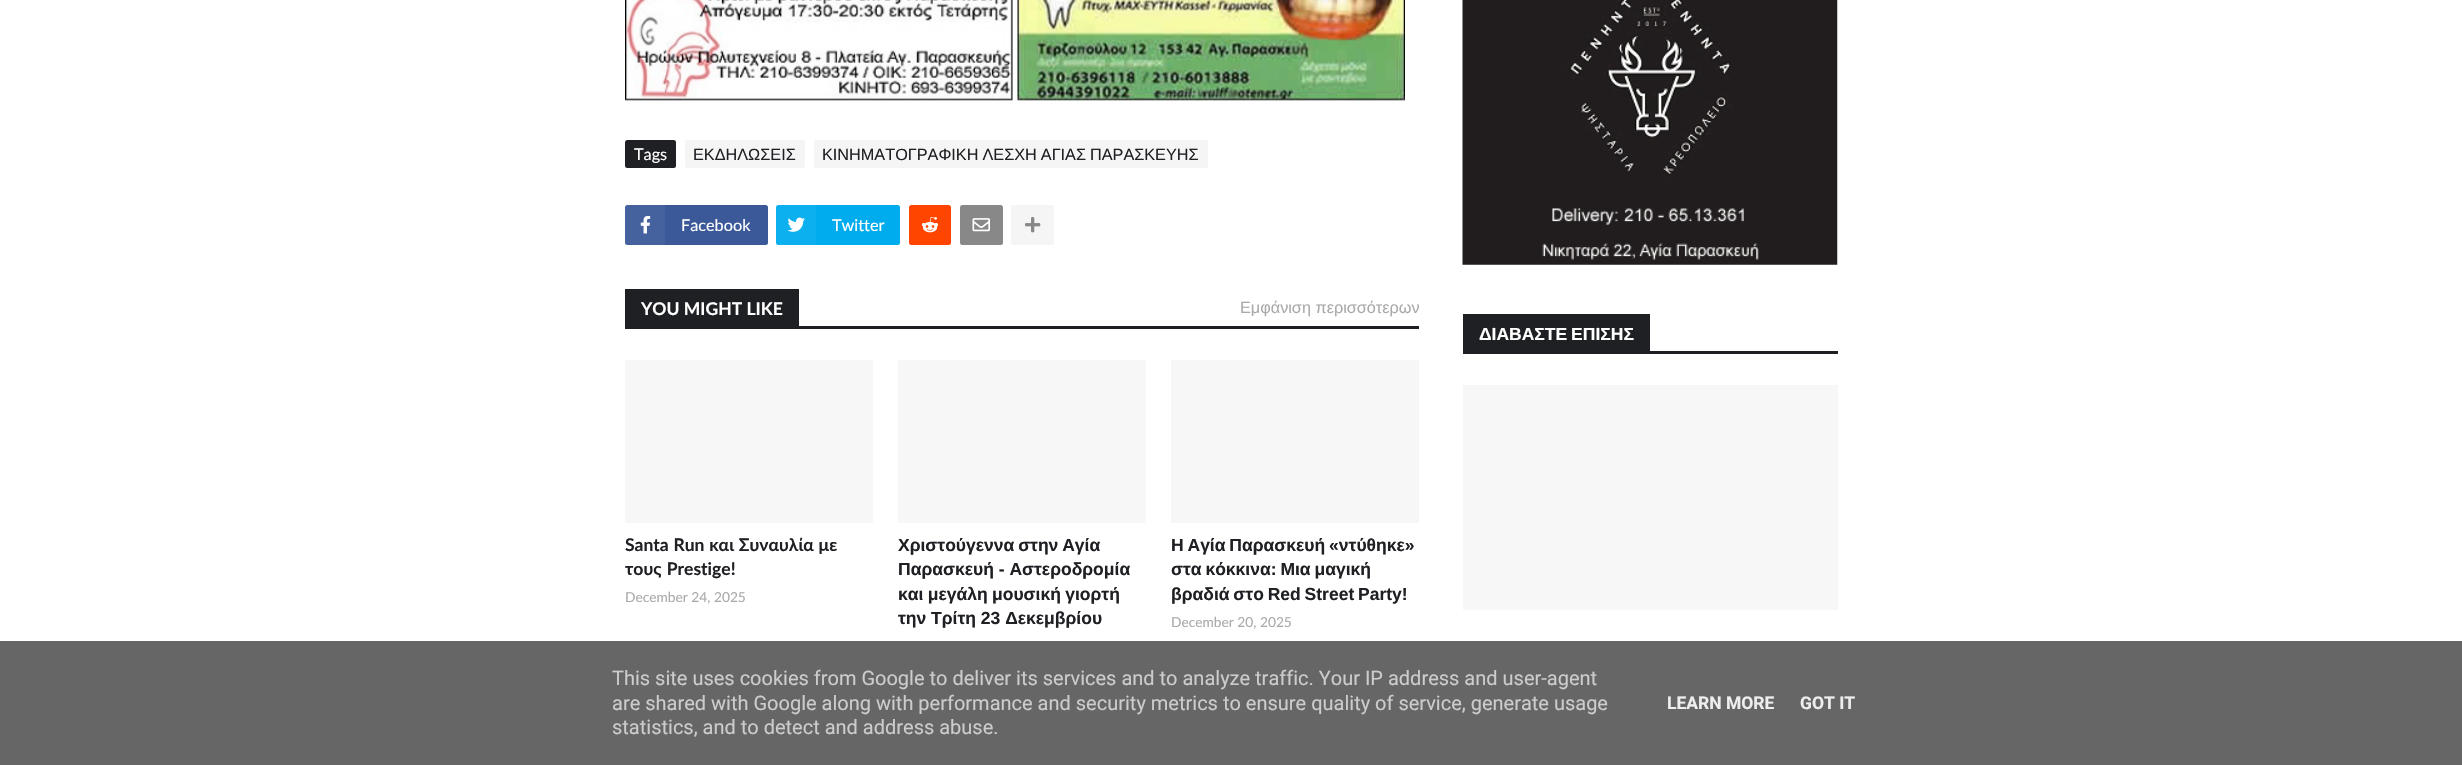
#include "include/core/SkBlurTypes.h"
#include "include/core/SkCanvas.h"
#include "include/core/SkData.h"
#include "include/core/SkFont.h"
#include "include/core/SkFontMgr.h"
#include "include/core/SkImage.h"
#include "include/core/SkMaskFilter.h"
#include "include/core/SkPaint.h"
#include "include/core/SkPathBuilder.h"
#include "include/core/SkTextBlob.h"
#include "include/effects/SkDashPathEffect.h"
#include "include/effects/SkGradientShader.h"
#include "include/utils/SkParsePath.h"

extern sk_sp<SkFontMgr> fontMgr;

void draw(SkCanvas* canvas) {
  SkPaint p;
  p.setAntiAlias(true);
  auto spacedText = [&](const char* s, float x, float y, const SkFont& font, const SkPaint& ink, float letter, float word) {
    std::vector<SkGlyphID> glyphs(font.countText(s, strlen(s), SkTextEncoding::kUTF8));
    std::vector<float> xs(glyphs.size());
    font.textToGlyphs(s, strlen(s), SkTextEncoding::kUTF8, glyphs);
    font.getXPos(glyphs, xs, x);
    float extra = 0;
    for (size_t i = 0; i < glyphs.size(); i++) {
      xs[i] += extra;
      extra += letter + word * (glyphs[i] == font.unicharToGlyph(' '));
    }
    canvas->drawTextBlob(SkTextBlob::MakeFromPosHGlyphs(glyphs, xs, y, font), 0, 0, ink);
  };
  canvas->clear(SK_ColorWHITE);
  canvas->drawImageRect(SkImages::DeferredFromEncodedData(SkData::MakeFromFileName("images/1.png")), SkRect::MakeLTRB(625, 0, 1013, 101), SkSamplingOptions());
  canvas->drawImageRect(SkImages::DeferredFromEncodedData(SkData::MakeFromFileName("images/2.png")), SkRect::MakeLTRB(1017, 0, 1405, 101), SkSamplingOptions());
  p.setColor(SkColorSetRGB(31, 32, 36));
  canvas->drawRoundRect(SkRect::MakeLTRB(625, 140, 676, 168), 2.5f, 2.5f, p);
  p.setColor(SkColorSetRGB(245, 245, 245));
  canvas->drawRoundRect(SkRect::MakeLTRB(685, 140, 805, 168), 2.5f, 2.5f, p);
  canvas->drawRoundRect(SkRect::MakeLTRB(814, 140, 1208, 168), 2.5f, 2.5f, p);
  p.setColor(SkColorSetRGB(59, 89, 153));
  canvas->drawRoundRect(SkRect::MakeLTRB(625, 205, 768, 245), 2.5f, 2.5f, p);
  p.setColor(SkColorSetARGB(13, 255, 255, 255));
  canvas->drawRect(SkRect::MakeLTRB(625, 205, 665, 245), p);
  canvas->drawImageRect(SkImages::DeferredFromEncodedData(SkData::MakeFromFileName("images/3.png")), SkRect::MakeLTRB(640, 215, 651, 234), SkSamplingOptions());
  p.setColor(SkColorSetRGB(0, 172, 238));
  canvas->drawRoundRect(SkRect::MakeLTRB(776, 205, 900, 245), 2.5f, 2.5f, p);
  p.setColor(SkColorSetARGB(13, 255, 255, 255));
  canvas->drawRect(SkRect::MakeLTRB(776, 205, 816, 245), p);
  canvas->drawImageRect(SkImages::DeferredFromEncodedData(SkData::MakeFromFileName("images/4.png")), SkRect::MakeLTRB(787, 217, 805, 232), SkSamplingOptions());
  p.setColor(SkColorSetRGB(255, 69, 0));
  canvas->drawRoundRect(SkRect::MakeLTRB(909, 205, 951, 245), 2.5f, 2.5f, p);
  canvas->drawImageRect(SkImages::DeferredFromEncodedData(SkData::MakeFromFileName("images/5.png")), SkRect::MakeLTRB(921, 217, 939, 233), SkSamplingOptions());
  p.setColor(SkColorSetRGB(136, 136, 136));
  canvas->drawRoundRect(SkRect::MakeLTRB(960, 205, 1003, 245), 2.5f, 2.5f, p);
  canvas->drawImageRect(SkImages::DeferredFromEncodedData(SkData::MakeFromFileName("images/6.png")), SkRect::MakeLTRB(972, 218, 990, 232), SkSamplingOptions());
  p.setColor(SkColorSetRGB(245, 245, 245));
  canvas->drawRoundRect(SkRect::MakeLTRB(1011, 205, 1054, 245), 2.5f, 2.5f, p);
  canvas->drawImageRect(SkImages::DeferredFromEncodedData(SkData::MakeFromFileName("images/7.png")), SkRect::MakeLTRB(1025, 217, 1041, 233), SkSamplingOptions());
  p.setColor(SkColorSetRGB(31, 32, 36));
  canvas->drawRect(SkRect::MakeLTRB(625, 326, 1419, 329), p);
  canvas->drawRect(SkRect::MakeLTRB(625, 289, 799, 326), p);
  p.setColor(SkColorSetRGB(247, 247, 247));
  canvas->drawRect(SkRect::MakeLTRB(625, 360, 873, 523), p);
  canvas->drawRect(SkRect::MakeLTRB(898, 360, 1146, 523), p);
  canvas->drawRect(SkRect::MakeLTRB(1171, 360, 1419, 523), p);
  canvas->drawImageRect(SkImages::DeferredFromEncodedData(SkData::MakeFromFileName("images/8.png")), SkRect::MakeLTRB(1462, 0, 1838, 265), SkSamplingOptions());
  p.setColor(SkColorSetRGB(31, 32, 36));
  canvas->drawRect(SkRect::MakeLTRB(1463, 351, 1838, 354), p);
  canvas->drawRect(SkRect::MakeLTRB(1463, 314, 1650, 351), p);
  p.setColor(SkColorSetRGB(247, 247, 247));
  canvas->drawRect(SkRect::MakeLTRB(1463, 385, 1838, 610), p);
  p.setColor(SkColorSetRGB(102, 102, 102));
  canvas->drawRect(SkRect::MakeLTRB(0, 641, 2462, 765), p);
  SkFont font1(fontMgr->matchFamilyStyle("Lato", SkFontStyle::Normal()), 16.25f);
  font1.setSubpixel(true);
  p.setColor(SK_ColorWHITE);
  canvas->drawString("Tags", 634, 160, font1, p);
  SkFont font2(fontMgr->matchFamilyStyle("Liberation Sans", SkFontStyle::Normal()), 16.25f);
  font2.setSubpixel(true);
  p.setColor(SkColorSetRGB(31, 32, 36));
  canvas->drawString("ΕΚΔΗΛΩΣΕΙΣ", 693, 160, font2, p);
  spacedText("ΚΙΝΗΜΑΤΟΓΡΑΦΙΚΗ ΛΕΣΧΗ ΑΓΙΑΣ ΠΑΡΑΣΚΕΥΗΣ", 822, 160, font2, p, 0, -0.5f);
  p.setColor(SK_ColorWHITE);
  canvas->drawString("Facebook", 681, 231, font1, p);
  canvas->drawString("Twitter", 832, 231, font1, p);
  SkFont font3(fontMgr->matchFamilyStyle("Lato", SkFontStyle::Bold()), 17.5f);
  font3.setSubpixel(true);
  canvas->drawString("YOU MIGHT LIKE", 641, 315, font3, p);
  p.setColor(SkColorSetRGB(170, 170, 170));
  canvas->drawString("Εμφάνιση περισσότερων", 1240, 313, font2, p);
  p.setColor(SkColorSetRGB(31, 32, 36));
  spacedText("Santa Run και Συναυλία με", 625, 551, font3, p, 0, 0.5f);
  spacedText("τους Prestige!", 625, 575, font3, p, 0, 1);
  SkFont font4(fontMgr->matchFamilyStyle("Lato", SkFontStyle::Normal()), 13.75f);
  font4.setSubpixel(true);
  p.setColor(SkColorSetRGB(170, 170, 170));
  canvas->drawString("December 24, 2025", 625, 602, font4, p);
  SkFont font5(fontMgr->matchFamilyStyle("Liberation Sans", SkFontStyle::Bold()), 17.5f);
  font5.setSubpixel(true);
  p.setColor(SkColorSetRGB(31, 32, 36));
  spacedText("Χριστούγεννα στην Αγία", 898, 551, font5, p, 0, -1);
  canvas->drawString("Παρασκευή - Αστεροδρομία", 898, 575, font5, p);
  spacedText("και μεγάλη μουσική γιορτή", 898, 600, font5, p, 0, -0.5f);
  canvas->drawString("την Τρίτη 23 Δεκεμβρίου", 898, 624, font5, p);
  spacedText("Η Αγία Παρασκευή «ντύθηκε»", 1171, 551, font5, p, 0, -1);
  spacedText("στα κόκκινα: Μια μαγική", 1171, 575, font5, p, 0, -1);
  spacedText("βραδιά στο Red Street Party!", 1171, 600, font5, p, 0, -1);
  p.setColor(SkColorSetRGB(170, 170, 170));
  canvas->drawString("December 20, 2025", 1171, 627, font4, p);
  p.setColor(SK_ColorWHITE);
  spacedText("ΔΙΑΒΑΣΤΕ ΕΠΙΣΗΣ", 1479, 340, font5, p, 0, -1);
  SkFont font6(fontMgr->matchFamilyStyle("Roboto", SkFontStyle::Normal()), 20);
  font6.setSubpixel(true);
  p.setColor(SkColorSetRGB(204, 204, 204));
  canvas->drawString("This site uses cookies from Google to deliver its services and to analyze traffic. Your IP address and user-agent", 612, 685, font6, p);
  canvas->drawString("are shared with Google along with performance and security metrics to ensure quality of service, generate usage", 612, 710, font6, p);
  canvas->drawString("statistics, and to detect and address abuse.", 612, 734, font6, p);
  SkFont font7(fontMgr->matchFamilyStyle("Roboto", SkFontStyle::Bold()), 17.5f);
  font7.setSubpixel(true);
  p.setColor(SkColorSetRGB(238, 238, 238));
  canvas->drawString("LEARN MORE", 1667, 709, font7, p);
  canvas->drawString("GOT IT", 1800, 709, font7, p);
}
